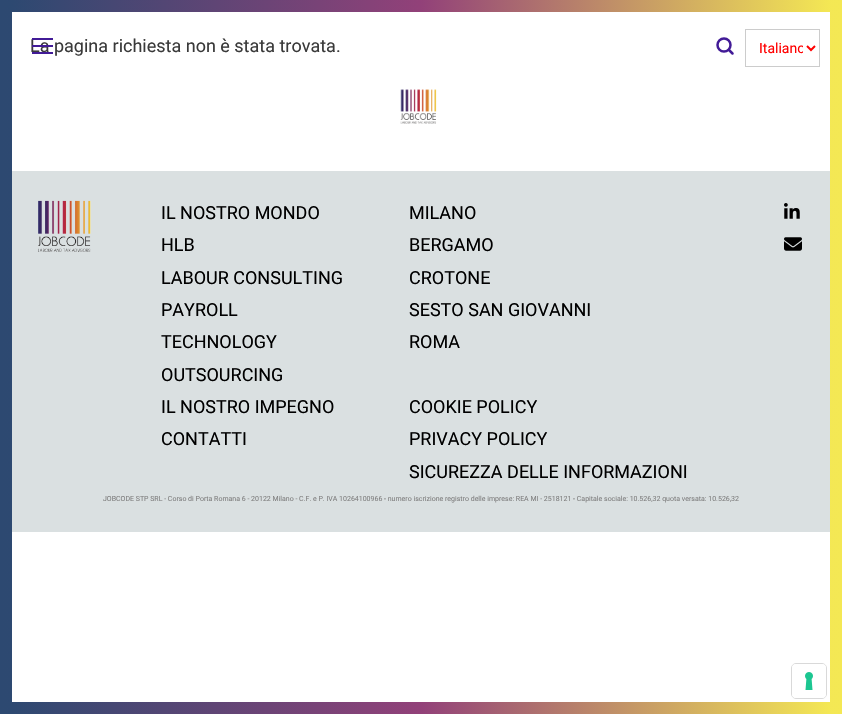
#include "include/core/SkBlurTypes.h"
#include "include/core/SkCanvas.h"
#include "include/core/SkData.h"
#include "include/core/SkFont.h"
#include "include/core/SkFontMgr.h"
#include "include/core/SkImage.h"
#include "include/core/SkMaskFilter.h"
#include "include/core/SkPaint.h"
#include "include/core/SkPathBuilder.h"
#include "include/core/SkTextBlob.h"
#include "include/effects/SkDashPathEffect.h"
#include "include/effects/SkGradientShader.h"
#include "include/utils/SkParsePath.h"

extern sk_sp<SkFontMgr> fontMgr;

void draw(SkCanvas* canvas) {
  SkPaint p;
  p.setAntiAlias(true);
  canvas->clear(SK_ColorWHITE);
  canvas->drawImageRect(SkImages::DeferredFromEncodedData(SkData::MakeFromFileName("images/1.png")), SkRect::MakeLTRB(0, 0, 842, 714), SkSamplingOptions());
  p.setStyle(SkPaint::kStroke_Style);
  p.setStrokeWidth(2.5f);
  p.setColor(SkColorSetRGB(66, 27, 151));
  canvas->drawCircle(724, 45, 6.5f, p);
  p.setStrokeCap(SkPaint::kRound_Cap);
  p.setStrokeJoin(SkPaint::kRound_Join);
  canvas->drawPath(SkPathBuilder().moveTo(732.5f, 53.5f).lineTo(729, 50).detach(), p);
  p.setStrokeWidth(1);
  p.setStrokeCap(SkPaint::kButt_Cap);
  p.setStrokeJoin(SkPaint::kMiter_Join);
  p.setColor(SkColorSetRGB(204, 204, 204));
  canvas->drawRect(SkRect::MakeLTRB(745.5f, 29.5f, 819.5f, 66.5f), p);
  p.setStrokeWidth(2);
  p.setColor(SkColorSetRGB(255, 0, 0));
  canvas->drawPath(SkPathBuilder().moveTo(807, 46).lineTo(811, 50).lineTo(815, 46).detach(), p);
  canvas->drawImageRect(SkImages::DeferredFromEncodedData(SkData::MakeFromFileName("images/2.png")), SkRect::MakeLTRB(400, 89, 437, 124), SkSamplingOptions());
  p.setStyle(SkPaint::kFill_Style);
  p.setColor(SkColorSetRGB(218, 224, 225));
  canvas->drawRect(SkRect::MakeLTRB(12, 171, 830, 532), p);
  canvas->drawImageRect(SkImages::DeferredFromEncodedData(SkData::MakeFromFileName("images/3.png")), SkRect::MakeLTRB(38, 200, 91, 252), SkSamplingOptions());
  canvas->drawImageRect(SkImages::DeferredFromEncodedData(SkData::MakeFromFileName("images/4.png")), SkRect::MakeLTRB(784, 203, 800, 219), SkSamplingOptions());
  canvas->drawImageRect(SkImages::DeferredFromEncodedData(SkData::MakeFromFileName("images/5.png")), SkRect::MakeLTRB(784, 237, 802, 251), SkSamplingOptions());
  p.setStyle(SkPaint::kStroke_Style);
  p.setStrokeWidth(1);
  p.setColor(SkColorSetRGB(217, 217, 217));
  canvas->drawRoundRect(SkRect::MakeLTRB(791.5f, 663.5f, 826.5f, 698.5f), 4.5f, 4.5f, p);
  p.setStyle(SkPaint::kFill_Style);
  p.setColor(SK_ColorWHITE);
  canvas->drawRoundRect(SkRect::MakeLTRB(792, 664, 826, 698), 4, 4, p);
  canvas->drawImageRect(SkImages::DeferredFromEncodedData(SkData::MakeFromFileName("images/6.png")), SkRect::MakeLTRB(805, 672, 813, 690), SkSamplingOptions());
  SkFont font1(fontMgr->matchFamilyStyle("Roboto", SkFontStyle::Normal()), 18);
  font1.setSubpixel(true);
  p.setColor(SkColorSetRGB(58, 58, 58));
  canvas->drawString("La pagina richiesta non è stata trovata.", 30, 52, font1, p);
  p.setColor(SkColorSetRGB(66, 27, 151));
  canvas->drawRect(SkRect::MakeLTRB(32, 38, 53, 40), p);
  canvas->drawRect(SkRect::MakeLTRB(32, 45, 53, 47), p);
  canvas->drawRect(SkRect::MakeLTRB(32, 52, 53, 54), p);
  canvas->save();
  canvas->clipRect(SkRect::MakeLTRB(759, 39, 803, 57));
  SkFont font2(fontMgr->matchFamilyStyle("Roboto", SkFontStyle::Normal()), 14);
  font2.setSubpixel(true);
  p.setColor(SkColorSetRGB(255, 0, 0));
  canvas->drawString("Italiano", 759, 53, font2, p);
  canvas->restore();
  p.setColor(SK_ColorBLACK);
  canvas->drawString("IL NOSTRO MONDO", 161, 219, font1, p);
  canvas->drawString("HLB", 161, 251, font1, p);
  canvas->drawString("LABOUR CONSULTING", 161, 284, font1, p);
  canvas->drawString("PAYROLL", 161, 316, font1, p);
  canvas->drawString("TECHNOLOGY", 161, 348, font1, p);
  canvas->drawString("OUTSOURCING", 161, 381, font1, p);
  canvas->drawString("IL NOSTRO IMPEGNO", 161, 413, font1, p);
  canvas->drawString("CONTATTI", 161, 445, font1, p);
  canvas->drawString("MILANO", 409, 219, font1, p);
  canvas->drawString("BERGAMO", 409, 251, font1, p);
  canvas->drawString("CROTONE", 409, 284, font1, p);
  canvas->drawString("SESTO SAN GIOVANNI", 409, 316, font1, p);
  canvas->drawString("ROMA", 409, 348, font1, p);
  canvas->drawString("COOKIE POLICY", 409, 413, font1, p);
  canvas->drawString("PRIVACY POLICY", 409, 445, font1, p);
  canvas->drawString("SICUREZZA DELLE INFORMAZIONI", 409, 478, font1, p);
  SkFont font3(fontMgr->matchFamilyStyle("Roboto", SkFontStyle::Normal()), 7);
  font3.setSubpixel(true);
  p.setColor(SkColorSetRGB(128, 128, 128));
  canvas->drawString("JOBCODE STP SRL - Corso di Porta Romana 6 - 20122 Milano - C.F. e P. IVA 10264100966 - numero iscrizione registro delle imprese: REA MI - 2518121 - Capitale sociale: 10.526,32 quota versata: 10.526,32", 103, 501, font3, p);
}
